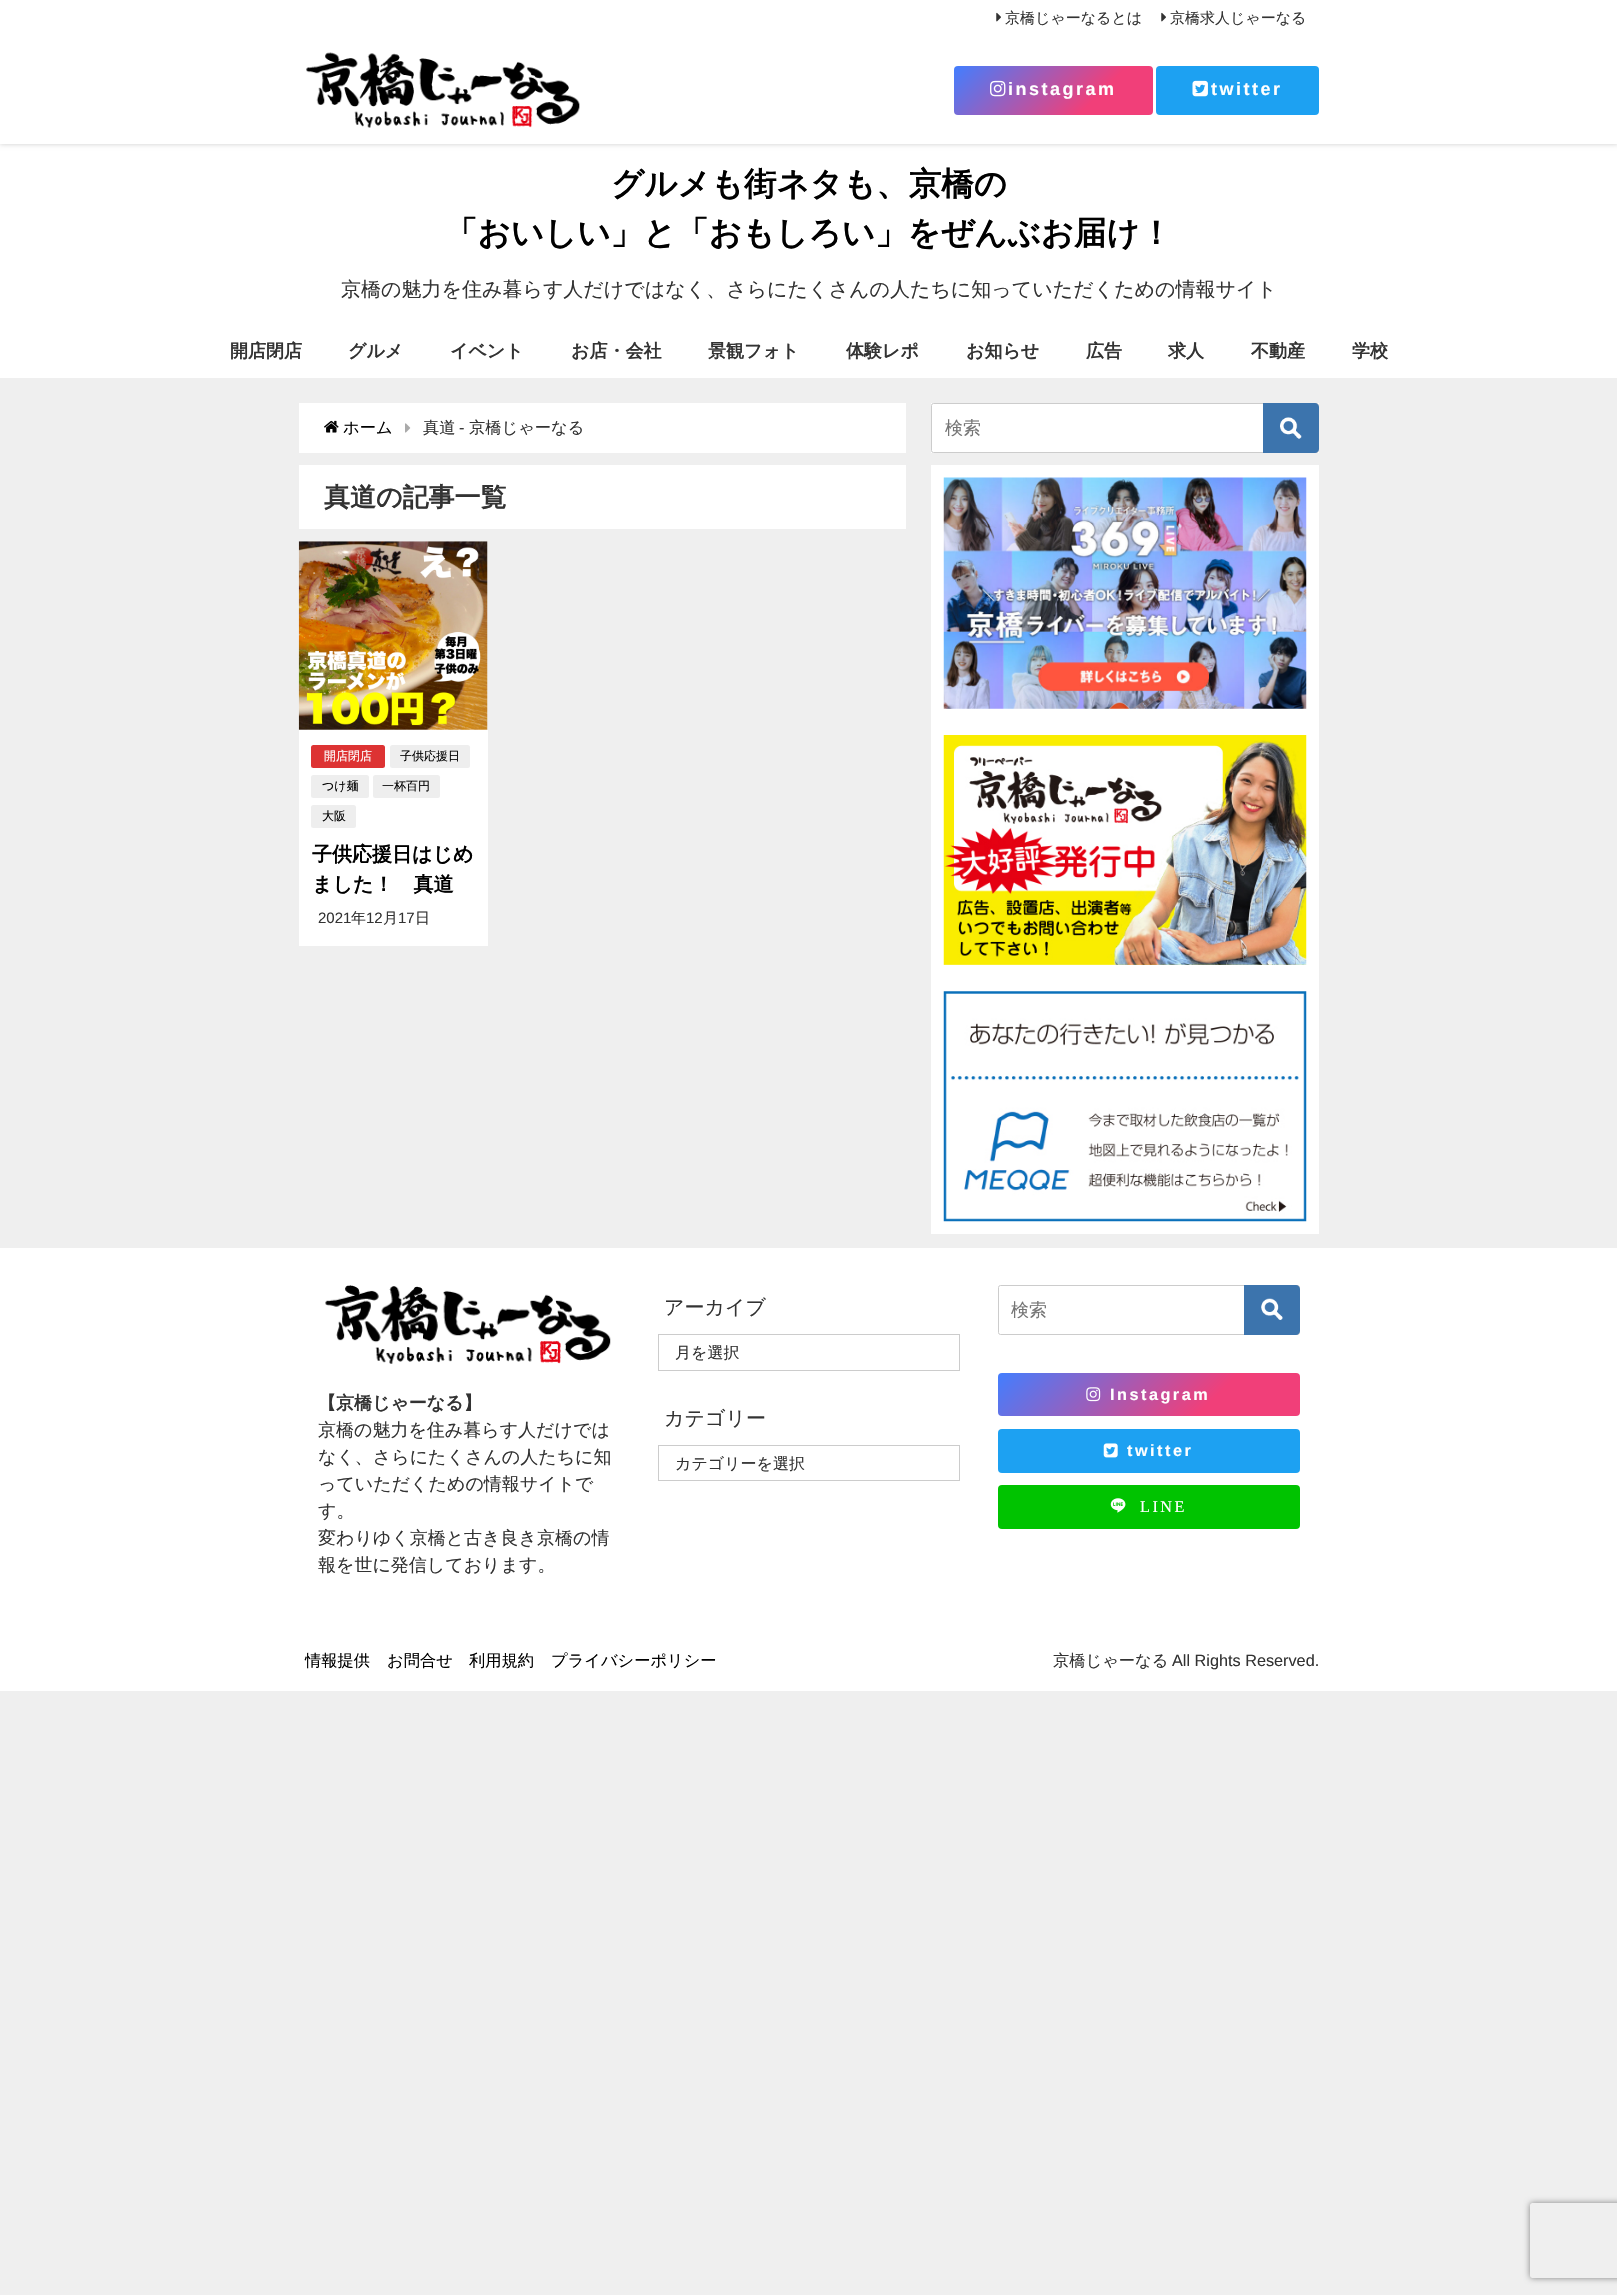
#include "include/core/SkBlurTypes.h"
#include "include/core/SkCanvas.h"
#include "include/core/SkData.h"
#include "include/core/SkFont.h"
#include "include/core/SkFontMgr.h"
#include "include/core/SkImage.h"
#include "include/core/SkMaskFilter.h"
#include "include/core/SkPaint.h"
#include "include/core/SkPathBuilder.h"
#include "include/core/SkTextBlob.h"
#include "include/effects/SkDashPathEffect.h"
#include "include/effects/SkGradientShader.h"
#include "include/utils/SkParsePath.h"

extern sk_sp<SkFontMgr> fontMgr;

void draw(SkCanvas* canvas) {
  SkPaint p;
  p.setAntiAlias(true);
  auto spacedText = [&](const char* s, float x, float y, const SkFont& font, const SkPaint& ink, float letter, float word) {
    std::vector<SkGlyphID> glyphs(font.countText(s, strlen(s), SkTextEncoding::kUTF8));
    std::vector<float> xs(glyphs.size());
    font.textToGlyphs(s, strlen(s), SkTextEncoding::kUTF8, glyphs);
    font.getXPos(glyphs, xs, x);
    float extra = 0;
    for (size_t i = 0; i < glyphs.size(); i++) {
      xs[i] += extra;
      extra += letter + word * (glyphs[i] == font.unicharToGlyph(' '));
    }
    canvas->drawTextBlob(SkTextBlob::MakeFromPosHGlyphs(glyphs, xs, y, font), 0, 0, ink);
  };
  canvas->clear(SkColorSetRGB(239, 239, 239));
  p.setColor(SK_ColorWHITE);
  canvas->drawRect(SkRect::MakeLTRB(0, 144, 1617, 378), p);
  p.setColor(SkColorSetARGB(51, 0, 0, 0));
  p.setMaskFilter(SkMaskFilter::MakeBlur(kNormal_SkBlurStyle, 2.5f));
  canvas->drawRect(SkRect::MakeLTRB(0, 0, 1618, 144), p);
  p.setMaskFilter(nullptr);
  p.setColor(SK_ColorWHITE);
  canvas->drawRect(SkRect::MakeLTRB(0, 0, 1617, 144), p);
  canvas->drawImageRect(SkImages::DeferredFromEncodedData(SkData::MakeFromFileName("images/1.png")), SkRect::MakeLTRB(996, 12, 1001, 22), SkSamplingOptions());
  canvas->drawImageRect(SkImages::DeferredFromEncodedData(SkData::MakeFromFileName("images/1.png")), SkRect::MakeLTRB(1161, 12, 1166, 22), SkSamplingOptions());
  canvas->drawImageRect(SkImages::DeferredFromEncodedData(SkData::MakeFromFileName("images/2.png")), SkRect::MakeLTRB(306, 52, 580, 128), SkSamplingOptions());
  {
    const SkColor colors[] = {SkColorSetRGB(66, 126, 255), SkColorSetRGB(241, 63, 121)};
    const float stops[] = {0, 0.7f};
    const SkPoint ends[] = {{991, 29}, {1115, 153}};
    p.setShader(SkGradientShader::MakeLinear(ends, colors, stops, 2, SkTileMode::kClamp));
    p.setAlpha(255);
  }
  canvas->drawRoundRect(SkRect::MakeLTRB(954, 66, 1153, 115), 4, 4, p);
  canvas->drawImageRect(SkImages::DeferredFromEncodedData(SkData::MakeFromFileName("images/3.png")), SkRect::MakeLTRB(990, 80, 1006, 97), SkSamplingOptions());
  p.setShader(nullptr);
  p.setColor(SkColorSetRGB(29, 161, 242));
  canvas->drawRoundRect(SkRect::MakeLTRB(1156, 66, 1319, 115), 4, 4, p);
  canvas->drawImageRect(SkImages::DeferredFromEncodedData(SkData::MakeFromFileName("images/4.png")), SkRect::MakeLTRB(1192, 80, 1208, 97), SkSamplingOptions());
  p.setColor(SK_ColorWHITE);
  canvas->drawRect(SkRect::MakeLTRB(299, 403, 906, 453), p);
  canvas->drawImageRect(SkImages::DeferredFromEncodedData(SkData::MakeFromFileName("images/5.png")), SkRect::MakeLTRB(324, 420, 339, 433), SkSamplingOptions());
  canvas->drawImageRect(SkImages::DeferredFromEncodedData(SkData::MakeFromFileName("images/6.png")), SkRect::MakeLTRB(405, 423, 411, 433), SkSamplingOptions());
  canvas->drawRect(SkRect::MakeLTRB(299, 465, 906, 529), p);
  canvas->drawRect(SkRect::MakeLTRB(299, 730, 488, 946), p);
  canvas->drawImageRect(SkImages::DeferredFromEncodedData(SkData::MakeFromFileName("images/7.png")), SkRect::MakeLTRB(298, 541, 488, 730), SkSamplingOptions());
  p.setColor(SkColorSetRGB(238, 238, 238));
  canvas->drawRoundRect(SkRect::MakeLTRB(390, 745, 470, 768), 2.5f, 2.5f, p);
  canvas->drawRoundRect(SkRect::MakeLTRB(311, 775, 369, 798), 2.5f, 2.5f, p);
  canvas->drawRoundRect(SkRect::MakeLTRB(373, 775, 440, 798), 2.5f, 2.5f, p);
  canvas->drawRoundRect(SkRect::MakeLTRB(311, 805, 356, 828), 2.5f, 2.5f, p);
  p.setColor(SkColorSetRGB(221, 51, 51));
  canvas->drawRoundRect(SkRect::MakeLTRB(311, 745, 385, 768), 2.5f, 2.5f, p);
  p.setColor(SK_ColorWHITE);
  canvas->drawRect(SkRect::MakeLTRB(931, 403, 1319, 453), p);
  p.setStyle(SkPaint::kStroke_Style);
  p.setStrokeWidth(1);
  p.setColor(SkColorSetRGB(204, 204, 204));
  canvas->drawRoundRect(SkRect::MakeLTRB(931.5f, 403.5f, 1318.5f, 452.5f), 2, 2, p);
  p.setStyle(SkPaint::kFill_Style);
  p.setColor(SkColorSetRGB(60, 116, 173));
  canvas->drawPath(SkPathBuilder().moveTo(1263, 403).lineTo(1315, 403).cubicTo(1317, 403, 1319, 405, 1319, 407).lineTo(1319, 449).cubicTo(1319, 451, 1317, 453, 1315, 453).lineTo(1263, 453).close().detach(), p);
  canvas->drawImageRect(SkImages::DeferredFromEncodedData(SkData::MakeFromFileName("images/8.png")), SkRect::MakeLTRB(1280, 417, 1302, 439), SkSamplingOptions());
  p.setColor(SK_ColorWHITE);
  canvas->drawRect(SkRect::MakeLTRB(931, 465, 1319, 1234), p);
  canvas->drawImageRect(SkImages::DeferredFromEncodedData(SkData::MakeFromFileName("images/9.png")), SkRect::MakeLTRB(943, 477, 1307, 709), SkSamplingOptions());
  canvas->drawImageRect(SkImages::DeferredFromEncodedData(SkData::MakeFromFileName("images/10.png")), SkRect::MakeLTRB(943, 735, 1307, 965), SkSamplingOptions());
  canvas->drawImageRect(SkImages::DeferredFromEncodedData(SkData::MakeFromFileName("images/11.png")), SkRect::MakeLTRB(943, 991, 1307, 1222), SkSamplingOptions());
  canvas->drawRect(SkRect::MakeLTRB(0, 1248, 1617, 1691), p);
  canvas->drawImageRect(SkImages::DeferredFromEncodedData(SkData::MakeFromFileName("images/12.png")), SkRect::MakeLTRB(325, 1285, 611, 1364), SkSamplingOptions());
  p.setStyle(SkPaint::kStroke_Style);
  p.setColor(SkColorSetRGB(204, 204, 204));
  canvas->drawRect(SkRect::MakeLTRB(658.5f, 1334.5f, 959.5f, 1370.5f), p);
  canvas->drawRect(SkRect::MakeLTRB(658.5f, 1445.5f, 959.5f, 1480.5f), p);
  canvas->drawRoundRect(SkRect::MakeLTRB(998.5f, 1285.5f, 1299.5f, 1334.5f), 2, 2, p);
  p.setStyle(SkPaint::kFill_Style);
  p.setColor(SkColorSetRGB(60, 116, 173));
  canvas->drawPath(SkPathBuilder().moveTo(1244, 1285).lineTo(1296, 1285).cubicTo(1298, 1285, 1300, 1287, 1300, 1289).lineTo(1300, 1331).cubicTo(1300, 1333, 1298, 1335, 1296, 1335).lineTo(1244, 1335).close().detach(), p);
  canvas->drawImageRect(SkImages::DeferredFromEncodedData(SkData::MakeFromFileName("images/13.png")), SkRect::MakeLTRB(1261, 1298, 1283, 1320), SkSamplingOptions());
  {
    const SkColor colors[] = {SkColorSetRGB(66, 126, 255), SkColorSetRGB(241, 63, 121)};
    const float stops[] = {0, 0.7f};
    const SkPoint ends[] = {{1062, 1308}, {1235, 1481}};
    p.setShader(SkGradientShader::MakeLinear(ends, colors, stops, 2, SkTileMode::kClamp));
    p.setAlpha(255);
  }
  canvas->drawRoundRect(SkRect::MakeLTRB(998, 1373, 1300, 1416), 4, 4, p);
  canvas->drawImageRect(SkImages::DeferredFromEncodedData(SkData::MakeFromFileName("images/14.png")), SkRect::MakeLTRB(1086, 1387, 1101, 1402), SkSamplingOptions());
  p.setShader(nullptr);
  p.setColor(SkColorSetRGB(29, 161, 242));
  canvas->drawRoundRect(SkRect::MakeLTRB(998, 1429, 1300, 1473), 4, 4, p);
  canvas->drawImageRect(SkImages::DeferredFromEncodedData(SkData::MakeFromFileName("images/15.png")), SkRect::MakeLTRB(1103, 1443, 1118, 1458), SkSamplingOptions());
  p.setColor(SkColorSetRGB(0, 195, 0));
  canvas->drawRoundRect(SkRect::MakeLTRB(998, 1485, 1300, 1529), 4, 4, p);
  canvas->drawImageRect(SkImages::DeferredFromEncodedData(SkData::MakeFromFileName("images/16.png")), SkRect::MakeLTRB(1110, 1498, 1126, 1513), SkSamplingOptions());
  canvas->save();
  canvas->clipPath(SkPathBuilder(SkPathFillType::kEvenOdd).moveTo(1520, 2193).lineTo(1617, 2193).lineTo(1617, 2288).lineTo(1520, 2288).close().moveTo(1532.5f, 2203).lineTo(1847.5f, 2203).cubicTo(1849, 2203, 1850, 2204, 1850, 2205.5f).lineTo(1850, 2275.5f).cubicTo(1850, 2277, 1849, 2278, 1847.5f, 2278).lineTo(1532.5f, 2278).cubicTo(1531, 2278, 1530, 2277, 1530, 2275.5f).lineTo(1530, 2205.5f).cubicTo(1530, 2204, 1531, 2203, 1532.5f, 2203).close().detach(), true);
  p.setColor(SkColorSetRGB(128, 128, 128));
  p.setMaskFilter(SkMaskFilter::MakeBlur(kNormal_SkBlurStyle, 3));
  canvas->drawRoundRect(SkRect::MakeLTRB(1530, 2203, 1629, 2278), 2.5f, 2.5f, p);
  p.setMaskFilter(nullptr);
  canvas->restore();
  SkFont font1(fontMgr->matchFamilyStyle("WenQuanYi Zen Hei", SkFontStyle(500, SkFontStyle::kNormal_Width, SkFontStyle::kUpright_Slant)), 15);
  font1.setSubpixel(true);
  p.setColor(SkColorSetRGB(51, 51, 51));
  canvas->drawString("京橋じゃーなるとは", 1005, 23, font1, p);
  canvas->drawString("京橋求人じゃーなる", 1170, 23, font1, p);
  SkFont font2(fontMgr->matchFamilyStyle("Liberation Sans", SkFontStyle::Bold()), 18);
  font2.setSubpixel(true);
  p.setColor(SK_ColorWHITE);
  spacedText("instagram", 1008, 95, font2, p, 2.5f, 0);
  spacedText("twitter", 1211, 95, font2, p, 2.5f, 0);
  SkFont font3(fontMgr->matchFamilyStyle("WenQuanYi Zen Hei", SkFontStyle::Bold()), 32.5f);
  font3.setSubpixel(true);
  p.setColor(SK_ColorBLACK);
  canvas->drawString("グルメも街ネタも、京橋の", 611, 195, font3, p);
  canvas->drawString("「おいしい」と「おもしろい」をぜんぶお届け！", 445, 244, font3, p);
  SkFont font4(fontMgr->matchFamilyStyle("WenQuanYi Zen Hei", SkFontStyle(500, SkFontStyle::kNormal_Width, SkFontStyle::kUpright_Slant)), 20);
  font4.setSubpixel(true);
  p.setColor(SkColorSetRGB(51, 51, 51));
  canvas->drawString("京橋の魅力を住み暮らす人だけではなく、さらにたくさんの人たちに知っていただくための情報サイト", 341, 296, font4, p);
  SkFont font5(fontMgr->matchFamilyStyle("WenQuanYi Zen Hei", SkFontStyle::Bold()), 18);
  font5.setSubpixel(true);
  canvas->drawString("開店閉店", 230, 357, font5, p);
  canvas->drawString("グルメ", 348, 357, font5, p);
  canvas->drawString("イベント", 450, 357, font5, p);
  canvas->drawString("お店・会社", 571, 357, font5, p);
  canvas->drawString("景観フォト", 708, 357, font5, p);
  canvas->drawString("体験レポ", 846, 357, font5, p);
  canvas->drawString("お知らせ", 966, 357, font5, p);
  canvas->drawString("広告", 1086, 357, font5, p);
  canvas->drawString("求人", 1168, 357, font5, p);
  canvas->drawString("不動産", 1251, 357, font5, p);
  canvas->drawString("学校", 1352, 357, font5, p);
  SkFont font6(fontMgr->matchFamilyStyle("WenQuanYi Zen Hei", SkFontStyle(500, SkFontStyle::kNormal_Width, SkFontStyle::kUpright_Slant)), 16.25f);
  font6.setSubpixel(true);
  p.setColor(SK_ColorBLACK);
  canvas->drawString("ホーム", 343, 433, font6, p);
  p.setColor(SkColorSetRGB(51, 51, 51));
  canvas->drawString("真道", 423, 433, font6, p);
  SkFont font7(fontMgr->matchFamilyStyle("Liberation Sans", SkFontStyle::Normal()), 16.25f);
  font7.setSubpixel(true);
  canvas->drawString("-", 459, 433, font7, p);
  canvas->drawString("京橋じゃーなる", 469, 433, font6, p);
  SkFont font8(fontMgr->matchFamilyStyle("WenQuanYi Zen Hei", SkFontStyle::Bold()), 26);
  font8.setSubpixel(true);
  canvas->drawString("真道の記事一覧", 324, 506, font8, p);
  SkFont font9(fontMgr->matchFamilyStyle("WenQuanYi Zen Hei", SkFontStyle(500, SkFontStyle::kNormal_Width, SkFontStyle::kUpright_Slant)), 12);
  font9.setSubpixel(true);
  p.setColor(SK_ColorBLACK);
  canvas->drawString("子供応援日", 400, 760, font9, p);
  canvas->drawString("つけ麺", 322, 790, font9, p);
  canvas->drawString("一杯百円", 382, 790, font9, p);
  canvas->drawString("大阪", 322, 820, font9, p);
  p.setColor(SK_ColorWHITE);
  canvas->drawString("開店閉店", 324, 760, font9, p);
  SkFont font10(fontMgr->matchFamilyStyle("WenQuanYi Zen Hei", SkFontStyle::Bold()), 20);
  font10.setSubpixel(true);
  p.setColor(SK_ColorBLACK);
  canvas->drawString("子供応援日はじめ", 312, 861, font10, p);
  canvas->drawString("ました！　真道", 312, 891, font10, p);
  SkFont font11(fontMgr->matchFamilyStyle("Liberation Sans", SkFontStyle::Normal()), 15);
  font11.setSubpixel(true);
  p.setColor(SkColorSetRGB(51, 51, 51));
  canvas->drawString("2021", 318, 923, font11, p);
  canvas->drawString("年", 351, 923, font1, p);
  canvas->drawString("12", 366, 923, font11, p);
  canvas->drawString("月", 383, 923, font1, p);
  canvas->drawString("17", 398, 923, font11, p);
  canvas->drawString("日", 415, 923, font1, p);
  SkFont font12(fontMgr->matchFamilyStyle("WenQuanYi Zen Hei", SkFontStyle(500, SkFontStyle::kNormal_Width, SkFontStyle::kUpright_Slant)), 18);
  font12.setSubpixel(true);
  p.setColor(SkColorSetRGB(117, 117, 117));
  canvas->drawString("検索", 945, 434, font12, p);
  p.setColor(SkColorSetRGB(51, 51, 51));
  canvas->drawString("【京橋じゃーなる】", 318, 1409, font5, p);
  canvas->drawString("京橋の魅力を住み暮らす人だけでは", 318, 1436, font12, p);
  canvas->drawString("なく、さらにたくさんの人たちに知", 318, 1463, font12, p);
  canvas->drawString("っていただくための情報サイトで", 318, 1490, font12, p);
  canvas->drawString("す。", 318, 1517, font12, p);
  canvas->drawString("変わりゆく京橋と古き良き京橋の情", 318, 1544, font12, p);
  canvas->drawString("報を世に発信しております。", 318, 1571, font12, p);
  canvas->drawString("アーカイブ", 664, 1314, font4, p);
  SkFont font13(fontMgr->matchFamilyStyle("WenQuanYi Zen Hei", SkFontStyle(500, SkFontStyle::kNormal_Width, SkFontStyle::kUpright_Slant)), 16);
  font13.setSubpixel(true);
  canvas->drawString("月を選択", 675, 1358, font13, p);
  canvas->drawString("カテゴリー", 664, 1425, font4, p);
  canvas->drawString("カテゴリーを選択", 675, 1469, font13, p);
  p.setColor(SkColorSetRGB(117, 117, 117));
  canvas->drawString("検索", 1011, 1316, font12, p);
  SkFont font14(fontMgr->matchFamilyStyle("Liberation Sans", SkFontStyle::Bold()), 16.25f);
  font14.setSubpixel(true);
  p.setColor(SK_ColorWHITE);
  spacedText("Instagram", 1110, 1400, font14, p, 2.5f, 0);
  spacedText("twitter", 1127, 1456, font14, p, 2.5f, 0);
  SkFont font15(fontMgr->matchFamilyStyle("Liberation Serif", SkFontStyle::Normal()), 16.25f);
  font15.setSubpixel(true);
  spacedText("LINE", 1140, 1512, font15, p, 2.5f, 0);
  p.setColor(SK_ColorBLACK);
  canvas->drawString("情報提供", 305, 1666, font6, p);
  canvas->drawString("お問合せ", 387, 1666, font6, p);
  canvas->drawString("利用規約", 469, 1666, font6, p);
  canvas->drawString("プライバシーポリシー", 551, 1666, font6, p);
  p.setColor(SkColorSetRGB(51, 51, 51));
  canvas->drawString("京橋じゃーなる", 1053, 1666, font6, p);
  canvas->drawString("All Rights Reserved.", 1172, 1666, font7, p);
}
